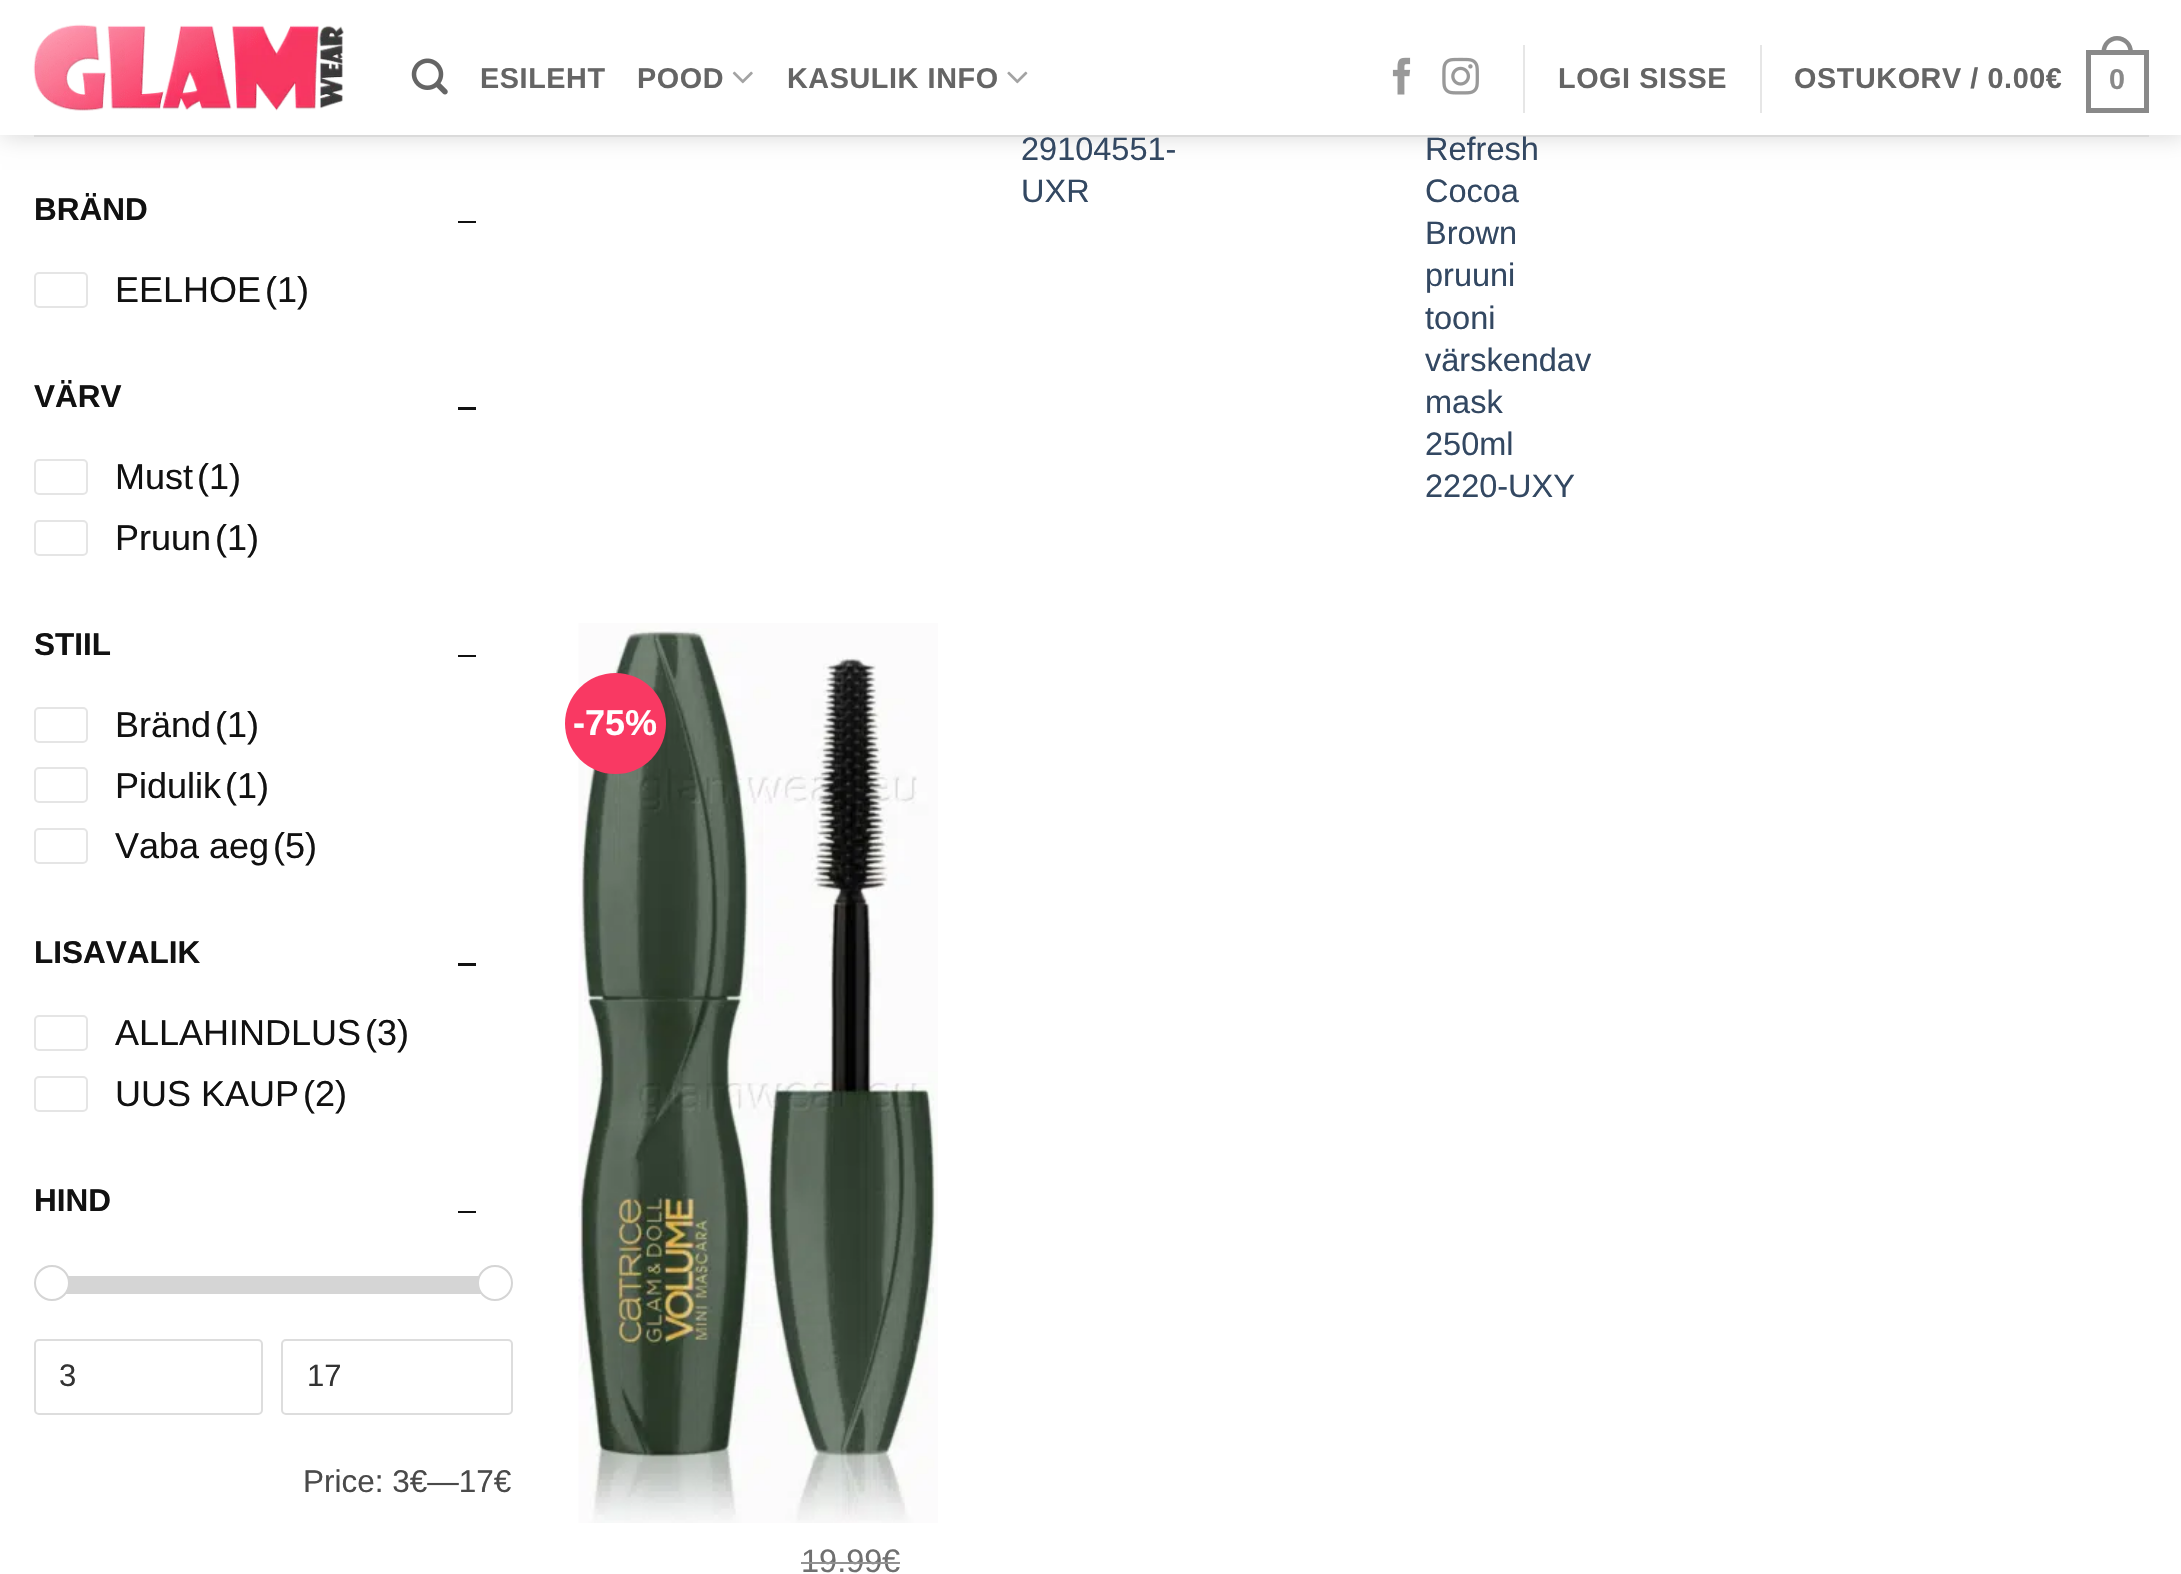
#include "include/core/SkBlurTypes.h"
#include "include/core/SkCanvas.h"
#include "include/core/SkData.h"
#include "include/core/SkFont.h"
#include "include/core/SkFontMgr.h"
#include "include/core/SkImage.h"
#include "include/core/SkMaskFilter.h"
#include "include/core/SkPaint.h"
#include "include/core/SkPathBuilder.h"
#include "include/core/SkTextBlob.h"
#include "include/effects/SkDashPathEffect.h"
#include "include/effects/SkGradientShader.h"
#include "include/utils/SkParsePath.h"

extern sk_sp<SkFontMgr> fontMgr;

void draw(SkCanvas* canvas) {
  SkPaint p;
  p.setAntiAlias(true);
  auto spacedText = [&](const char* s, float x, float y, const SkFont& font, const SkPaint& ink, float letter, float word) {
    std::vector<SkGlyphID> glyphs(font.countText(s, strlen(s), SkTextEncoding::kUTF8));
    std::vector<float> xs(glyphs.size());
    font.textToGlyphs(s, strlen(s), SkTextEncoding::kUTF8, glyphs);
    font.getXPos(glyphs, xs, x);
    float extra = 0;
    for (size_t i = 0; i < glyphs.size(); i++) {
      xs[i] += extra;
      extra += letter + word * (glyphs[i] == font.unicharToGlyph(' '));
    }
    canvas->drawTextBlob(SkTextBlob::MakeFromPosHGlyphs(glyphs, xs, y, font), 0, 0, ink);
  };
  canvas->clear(SK_ColorWHITE);
  p.setColor(SkColorSetARGB(38, 0, 0, 0));
  p.setMaskFilter(SkMaskFilter::MakeBlur(kNormal_SkBlurStyle, 11));
  canvas->drawRect(SkRect::MakeLTRB(2, 2, 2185, 137), p);
  p.setMaskFilter(nullptr);
  p.setColor(SK_ColorWHITE);
  canvas->drawRect(SkRect::MakeLTRB(0, 0, 2181, 135), p);
  canvas->drawImageRect(SkImages::DeferredFromEncodedData(SkData::MakeFromFileName("images/1.png")), SkRect::MakeLTRB(33, 24, 344, 111), SkSamplingOptions());
  canvas->drawImageRect(SkImages::DeferredFromEncodedData(SkData::MakeFromFileName("images/2.png")), SkRect::MakeLTRB(411, 58, 448, 95), SkSamplingOptions());
  canvas->drawImageRect(SkImages::DeferredFromEncodedData(SkData::MakeFromFileName("images/3.png")), SkRect::MakeLTRB(732, 71, 753, 84), SkSamplingOptions());
  canvas->drawImageRect(SkImages::DeferredFromEncodedData(SkData::MakeFromFileName("images/4.png")), SkRect::MakeLTRB(1007, 71, 1028, 84), SkSamplingOptions());
  canvas->drawImageRect(SkImages::DeferredFromEncodedData(SkData::MakeFromFileName("images/5.png")), SkRect::MakeLTRB(1392, 57, 1411, 95), SkSamplingOptions());
  canvas->drawImageRect(SkImages::DeferredFromEncodedData(SkData::MakeFromFileName("images/6.png")), SkRect::MakeLTRB(1442, 57, 1479, 95), SkSamplingOptions());
  p.setColor(SkColorSetRGB(230, 230, 230));
  canvas->drawRect(SkRect::MakeLTRB(1523, 45, 1525, 113), p);
  canvas->drawRect(SkRect::MakeLTRB(1760, 45, 1762, 113), p);
  p.setStyle(SkPaint::kStroke_Style);
  p.setStrokeWidth(5);
  p.setColor(SkColorSetRGB(137, 137, 137));
  canvas->drawRect(SkRect::MakeLTRB(2088.5f, 52.5f, 2146.5f, 110.5f), p);
  p.setStyle(SkPaint::kFill_Style);
  canvas->drawPath(SkPathBuilder(SkPathFillType::kEvenOdd).moveTo(2117, 36).cubicTo(2126, 36, 2133, 43, 2133, 52).lineTo(2133, 54).lineTo(2101.5f, 54).lineTo(2101.5f, 52).cubicTo(2101.5f, 43, 2108.5f, 36, 2117, 36).close().moveTo(2117, 40.5f).cubicTo(2123.5f, 40.5f, 2128.5f, 45.5f, 2128.5f, 52).lineTo(2128.5f, 54).lineTo(2106, 54).lineTo(2106, 52).cubicTo(2106, 45.5f, 2111, 40.5f, 2117, 40.5f).close().detach(), p);
  p.setColor(SkColorSetARGB(26, 74, 74, 74));
  canvas->drawRect(SkRect::MakeLTRB(34, 135, 2149, 137), p);
  p.setColor(SkColorSetRGB(17, 17, 17));
  canvas->drawRect(SkRect::MakeLTRB(458, 221, 476, 223), p);
  p.setStyle(SkPaint::kStroke_Style);
  p.setStrokeWidth(2);
  p.setColor(SkColorSetRGB(229, 229, 229));
  canvas->drawRoundRect(SkRect::MakeLTRB(35, 273, 87, 307), 4, 4, p);
  p.setStyle(SkPaint::kFill_Style);
  p.setColor(SkColorSetRGB(17, 17, 17));
  canvas->drawRect(SkRect::MakeLTRB(458, 407, 476, 410), p);
  p.setStyle(SkPaint::kStroke_Style);
  p.setColor(SkColorSetRGB(229, 229, 229));
  canvas->drawRoundRect(SkRect::MakeLTRB(35, 460, 87, 494), 4, 4, p);
  canvas->drawRoundRect(SkRect::MakeLTRB(35, 521, 87, 555), 4, 4, p);
  p.setStyle(SkPaint::kFill_Style);
  p.setColor(SkColorSetRGB(17, 17, 17));
  canvas->drawRect(SkRect::MakeLTRB(458, 655, 476, 657), p);
  p.setStyle(SkPaint::kStroke_Style);
  p.setColor(SkColorSetRGB(229, 229, 229));
  canvas->drawRoundRect(SkRect::MakeLTRB(35, 708, 87, 742), 4, 4, p);
  canvas->drawRoundRect(SkRect::MakeLTRB(35, 768, 87, 802), 4, 4, p);
  canvas->drawRoundRect(SkRect::MakeLTRB(35, 829, 87, 863), 4, 4, p);
  p.setStyle(SkPaint::kFill_Style);
  p.setColor(SkColorSetRGB(17, 17, 17));
  canvas->drawRect(SkRect::MakeLTRB(458, 963, 476, 966), p);
  p.setStyle(SkPaint::kStroke_Style);
  p.setColor(SkColorSetRGB(229, 229, 229));
  canvas->drawRoundRect(SkRect::MakeLTRB(35, 1016, 87, 1050), 4, 4, p);
  canvas->drawRoundRect(SkRect::MakeLTRB(35, 1077, 87, 1111), 4, 4, p);
  p.setStyle(SkPaint::kFill_Style);
  p.setColor(SkColorSetRGB(17, 17, 17));
  canvas->drawRect(SkRect::MakeLTRB(458, 1211, 476, 1213), p);
  p.setColor(SkColorSetRGB(213, 213, 213));
  canvas->drawRect(SkRect::MakeLTRB(66, 1276, 481, 1294), p);
  p.setColor(SK_ColorWHITE);
  canvas->drawCircle(52, 1283, 17, p);
  p.setStyle(SkPaint::kStroke_Style);
  p.setColor(SkColorSetRGB(213, 213, 213));
  canvas->drawCircle(52, 1283, 17, p);
  p.setStyle(SkPaint::kFill_Style);
  p.setColor(SK_ColorWHITE);
  canvas->drawCircle(495, 1283, 17, p);
  p.setStyle(SkPaint::kStroke_Style);
  p.setColor(SkColorSetRGB(213, 213, 213));
  canvas->drawCircle(495, 1283, 17, p);
  p.setColor(SkColorSetRGB(221, 221, 221));
  canvas->drawRoundRect(SkRect::MakeLTRB(35, 1340, 262, 1414), 4, 4, p);
  canvas->drawRoundRect(SkRect::MakeLTRB(282, 1340, 512, 1414), 4, 4, p);
  canvas->drawImageRect(SkImages::DeferredFromEncodedData(SkData::MakeFromFileName("images/7.png")), SkRect::MakeLTRB(578, 623, 938, 1523), SkSamplingOptions());
  p.setStyle(SkPaint::kFill_Style);
  p.setColor(SkColorSetRGB(249, 57, 99));
  canvas->drawCircle(615.5f, 723.5f, 50.5f, p);
  SkFont font1(fontMgr->matchFamilyStyle("Liberation Sans", SkFontStyle::Bold()), 28.75f);
  font1.setSubpixel(true);
  p.setColor(SkColorSetRGB(101, 101, 101));
  spacedText("ESILEHT", 480, 88, font1, p, 0.6f, 0);
  spacedText("POOD", 637, 88, font1, p, 0.6f, 0);
  spacedText("KASULIK INFO", 787, 88, font1, p, 0.6f, 0);
  spacedText("LOGI SISSE", 1558, 88, font1, p, 0.6f, 0);
  spacedText("OSTUKORV / 0.00€", 1794, 88, font1, p, 0.6f, 0);
  p.setColor(SkColorSetRGB(137, 137, 137));
  spacedText("0", 2109, 89, font1, p, 0.6f, 0);
  SkFont font2(fontMgr->matchFamilyStyle("Liberation Sans", SkFontStyle::Bold()), 31.5f);
  font2.setSubpixel(true);
  p.setColor(SkColorSetRGB(17, 17, 17));
  canvas->drawString("BRÄND", 34, 220, font2, p);
  SkFont font3(fontMgr->matchFamilyStyle("Liberation Sans", SkFontStyle::Normal()), 36);
  font3.setSubpixel(true);
  canvas->drawString("EELHOE", 115, 302, font3, p);
  canvas->drawString("(1)", 265, 302, font3, p);
  canvas->drawString("VÄRV", 34, 407, font2, p);
  canvas->drawString("Must", 115, 489, font3, p);
  canvas->drawString("(1)", 197, 489, font3, p);
  canvas->drawString("Pruun", 115, 550, font3, p);
  canvas->drawString("(1)", 215, 550, font3, p);
  canvas->drawString("STIIL", 34, 655, font2, p);
  canvas->drawString("Bränd", 115, 737, font3, p);
  canvas->drawString("(1)", 215, 737, font3, p);
  canvas->drawString("Pidulik", 115, 798, font3, p);
  canvas->drawString("(1)", 225, 798, font3, p);
  canvas->drawString("Vaba aeg", 115, 858, font3, p);
  canvas->drawString("(5)", 273, 858, font3, p);
  canvas->drawString("LISAVALIK", 34, 963, font2, p);
  canvas->drawString("ALLAHINDLUS", 115, 1045, font3, p);
  canvas->drawString("(3)", 365, 1045, font3, p);
  canvas->drawString("UUS KAUP", 115, 1106, font3, p);
  canvas->drawString("(2)", 303, 1106, font3, p);
  canvas->drawString("HIND", 34, 1211, font2, p);
  SkFont font4(fontMgr->matchFamilyStyle("Liberation Sans", SkFontStyle::Normal()), 31);
  font4.setSubpixel(true);
  p.setColor(SkColorSetRGB(51, 51, 51));
  canvas->drawString("3", 59, 1386, font4, p);
  canvas->drawString("17", 307, 1386, font4, p);
  SkFont font5(fontMgr->matchFamilyStyle("Liberation Sans", SkFontStyle::Normal()), 31.5f);
  font5.setSubpixel(true);
  p.setColor(SkColorSetRGB(74, 74, 74));
  canvas->drawString("Price: 3€—17€", 303, 1492, font5, p);
  SkFont font6(fontMgr->matchFamilyStyle("Liberation Sans", SkFontStyle::Normal()), 32.5f);
  font6.setSubpixel(true);
  p.setColor(SkColorSetRGB(51, 72, 98));
  canvas->drawString("29104551-", 1021, 160, font6, p);
  canvas->drawString("UXR", 1021, 202, font6, p);
  canvas->drawString("Refresh", 1425, 160, font6, p);
  canvas->drawString("Cocoa", 1425, 202, font6, p);
  canvas->drawString("Brown", 1425, 244, font6, p);
  canvas->drawString("pruuni", 1425, 286, font6, p);
  canvas->drawString("tooni", 1425, 329, font6, p);
  canvas->drawString("värskendav", 1425, 371, font6, p);
  canvas->drawString("mask", 1425, 413, font6, p);
  canvas->drawString("250ml", 1425, 455, font6, p);
  canvas->drawString("2220-UXY", 1425, 497, font6, p);
  SkFont font7(fontMgr->matchFamilyStyle("Liberation Sans", SkFontStyle::Bold()), 36);
  font7.setSubpixel(true);
  p.setColor(SK_ColorWHITE);
  canvas->drawString("-75%", 573, 735, font7, p);
  p.setColor(SkColorSetRGB(112, 112, 112));
  canvas->drawString("19.99", 801, 1572, font6, p);
  p.setColor(SkColorSetRGB(146, 146, 146));
  canvas->drawRect(SkRect::MakeLTRB(801, 1562, 882, 1564), p);
  p.setColor(SkColorSetRGB(112, 112, 112));
  canvas->drawString("€", 882, 1572, font6, p);
  p.setColor(SkColorSetRGB(146, 146, 146));
  canvas->drawRect(SkRect::MakeLTRB(882, 1562, 900, 1564), p);
}
